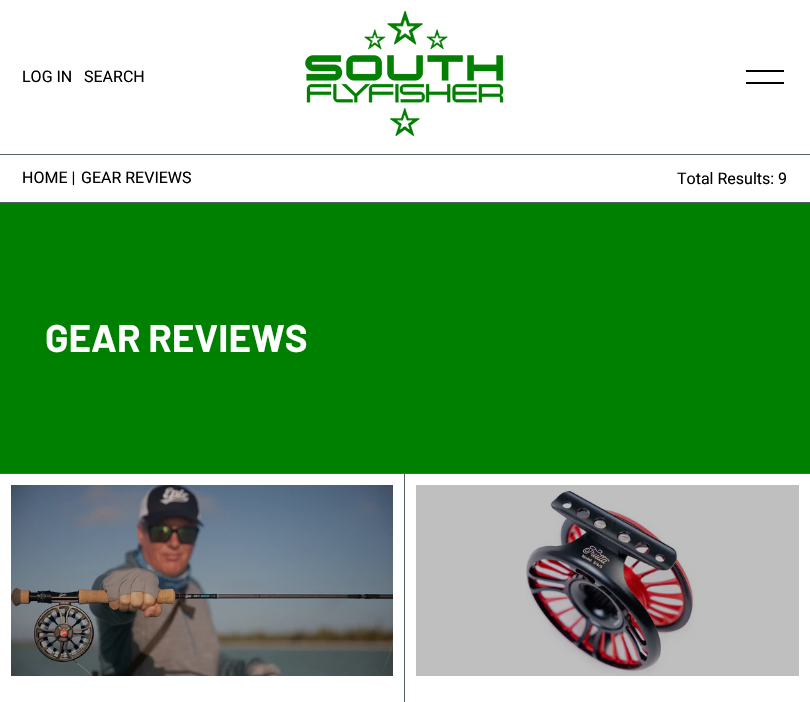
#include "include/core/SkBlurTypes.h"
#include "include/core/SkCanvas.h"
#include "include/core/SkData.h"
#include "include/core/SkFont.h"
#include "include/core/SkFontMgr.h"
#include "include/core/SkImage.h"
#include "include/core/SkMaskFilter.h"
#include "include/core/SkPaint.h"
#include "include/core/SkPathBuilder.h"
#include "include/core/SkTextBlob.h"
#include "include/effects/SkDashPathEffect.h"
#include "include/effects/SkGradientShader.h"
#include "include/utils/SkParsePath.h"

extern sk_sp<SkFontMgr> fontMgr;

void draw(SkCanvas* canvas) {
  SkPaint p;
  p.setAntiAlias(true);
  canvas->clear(SK_ColorWHITE);
  p.setColor(SkColorSetRGB(191, 191, 191));
  canvas->drawRect(SkRect::MakeLTRB(416, 485, 799, 676), p);
  p.setColor(SkColorSetRGB(83, 99, 98));
  canvas->drawRect(SkRect::MakeLTRB(0, 154, 810, 155), p);
  canvas->drawImageRect(SkImages::DeferredFromEncodedData(SkData::MakeFromFileName("images/1.png")), SkRect::MakeLTRB(305, 11, 504, 136), SkSamplingOptions());
  p.setColor(SK_ColorBLACK);
  canvas->drawRect(SkRect::MakeLTRB(746, 70, 784, 72), p);
  canvas->drawRect(SkRect::MakeLTRB(746, 82, 784, 84), p);
  p.setColor(SkColorSetRGB(83, 99, 98));
  canvas->drawRect(SkRect::MakeLTRB(0, 202, 810, 203), p);
  p.setColor(SkColorSetRGB(0, 128, 0));
  canvas->drawRect(SkRect::MakeLTRB(0, 203, 810, 473), p);
  p.setColor(SkColorSetRGB(83, 99, 98));
  canvas->drawRect(SkRect::MakeLTRB(0, 473, 810, 474), p);
  canvas->drawRect(SkRect::MakeLTRB(404, 474, 405, 702), p);
  canvas->drawImageRect(SkImages::DeferredFromEncodedData(SkData::MakeFromFileName("images/2.png")), SkRect::MakeLTRB(11, 485, 393, 676), SkSamplingOptions());
  canvas->drawImageRect(SkImages::DeferredFromEncodedData(SkData::MakeFromFileName("images/3.png")), SkRect::MakeLTRB(526, 491, 695, 676), SkSamplingOptions());
  SkFont font1(fontMgr->matchFamilyStyle("Roboto", SkFontStyle::Normal()), 16);
  font1.setSubpixel(true);
  p.setColor(SK_ColorBLACK);
  canvas->drawString("LOG IN", 22, 82, font1, p);
  canvas->drawString("SEARCH", 84, 82, font1, p);
  canvas->drawString("HOME |", 22, 183, font1, p);
  canvas->drawString("GEAR REVIEWS", 81, 183, font1, p);
  canvas->drawString("Total Results: 9", 677, 184, font1, p);
  SkFont font2(fontMgr->matchFamilyStyle("Barlow", SkFontStyle::Bold()), 38.5f);
  font2.setSubpixel(true);
  p.setColor(SK_ColorWHITE);
  canvas->drawString("GEAR REVIEWS", 45, 352, font2, p);
}
